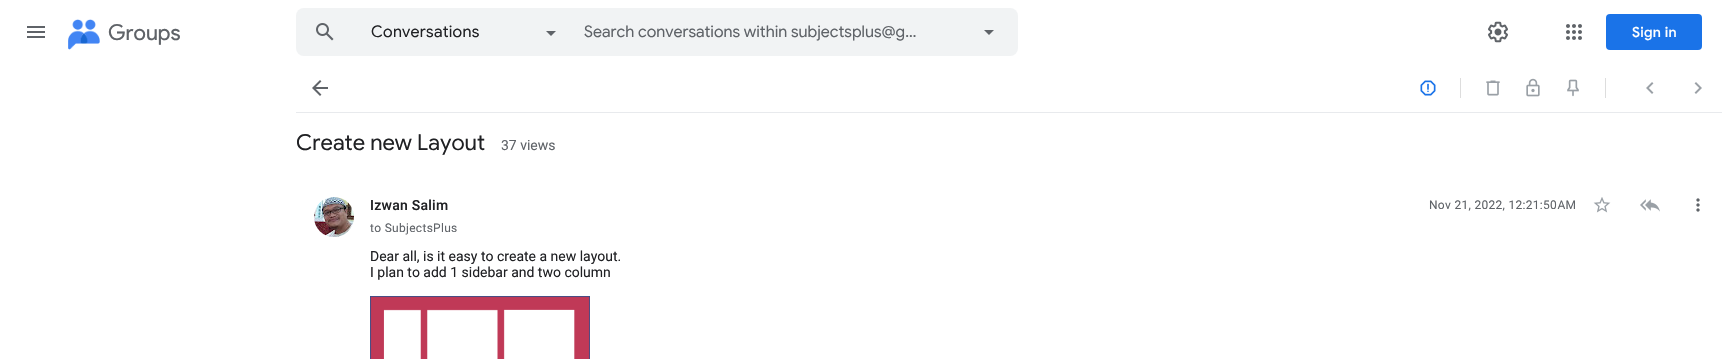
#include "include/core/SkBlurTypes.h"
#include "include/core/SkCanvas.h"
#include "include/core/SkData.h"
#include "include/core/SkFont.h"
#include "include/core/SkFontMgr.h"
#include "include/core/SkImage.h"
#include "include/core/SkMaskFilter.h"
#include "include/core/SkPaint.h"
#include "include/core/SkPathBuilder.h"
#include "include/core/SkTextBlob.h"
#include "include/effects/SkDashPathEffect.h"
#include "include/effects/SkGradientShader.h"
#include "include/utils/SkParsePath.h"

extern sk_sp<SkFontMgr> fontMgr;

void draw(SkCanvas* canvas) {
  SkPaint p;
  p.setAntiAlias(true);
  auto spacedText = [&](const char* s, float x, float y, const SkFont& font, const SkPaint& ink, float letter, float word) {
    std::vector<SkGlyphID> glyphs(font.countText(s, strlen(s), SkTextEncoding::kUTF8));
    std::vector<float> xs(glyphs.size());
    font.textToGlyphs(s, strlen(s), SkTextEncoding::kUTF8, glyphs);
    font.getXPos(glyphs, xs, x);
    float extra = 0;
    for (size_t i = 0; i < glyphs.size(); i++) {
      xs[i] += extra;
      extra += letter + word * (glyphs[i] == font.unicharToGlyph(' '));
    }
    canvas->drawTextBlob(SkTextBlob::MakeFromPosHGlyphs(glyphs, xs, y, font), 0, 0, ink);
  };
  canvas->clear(SK_ColorWHITE);
  canvas->drawImageRect(SkImages::DeferredFromEncodedData(SkData::MakeFromFileName("images/1.png")), SkRect::MakeLTRB(27, 26, 45, 38), SkSamplingOptions());
  canvas->drawImageRect(SkImages::DeferredFromEncodedData(SkData::MakeFromFileName("images/2.png")), SkRect::MakeLTRB(68, 19, 100, 50), SkSamplingOptions());
  p.setColor(SkColorSetRGB(241, 243, 244));
  canvas->drawRoundRect(SkRect::MakeLTRB(296, 8, 1018, 56), 8, 8, p);
  canvas->drawImageRect(SkImages::DeferredFromEncodedData(SkData::MakeFromFileName("images/3.png")), SkRect::MakeLTRB(316, 23, 334, 41), SkSamplingOptions());
  p.setColor(SkColorSetRGB(95, 99, 104));
  canvas->drawPath(SkPathBuilder().moveTo(546, 31).lineTo(556, 31).lineTo(551, 36).close().detach(), p);
  canvas->drawPath(SkPathBuilder().moveTo(984, 30).lineTo(989, 35).lineTo(994, 30).close().detach(), p);
  canvas->drawImageRect(SkImages::DeferredFromEncodedData(SkData::MakeFromFileName("images/4.png")), SkRect::MakeLTRB(1488, 21, 1508, 43), SkSamplingOptions());
  canvas->drawImageRect(SkImages::DeferredFromEncodedData(SkData::MakeFromFileName("images/5.png")), SkRect::MakeLTRB(1566, 24, 1582, 40), SkSamplingOptions());
  p.setColor(SkColorSetRGB(26, 115, 232));
  canvas->drawRoundRect(SkRect::MakeLTRB(1606, 14, 1702, 50), 4, 4, p);
  p.setColor(SkColorSetRGB(232, 234, 237));
  canvas->drawRect(SkRect::MakeLTRB(296, 112, 1722, 113), p);
  canvas->drawImageRect(SkImages::DeferredFromEncodedData(SkData::MakeFromFileName("images/6.png")), SkRect::MakeLTRB(312, 80, 328, 96), SkSamplingOptions());
  canvas->drawImageRect(SkImages::DeferredFromEncodedData(SkData::MakeFromFileName("images/7.png")), SkRect::MakeLTRB(1420, 80, 1436, 96), SkSamplingOptions());
  p.setColor(SkColorSetRGB(221, 221, 221));
  canvas->drawRect(SkRect::MakeLTRB(1460, 78, 1461, 98), p);
  canvas->drawImageRect(SkImages::DeferredFromEncodedData(SkData::MakeFromFileName("images/8.png")), SkRect::MakeLTRB(1486, 80, 1500, 96), SkSamplingOptions());
  canvas->drawImageRect(SkImages::DeferredFromEncodedData(SkData::MakeFromFileName("images/9.png")), SkRect::MakeLTRB(1526, 78, 1540, 97), SkSamplingOptions());
  canvas->drawImageRect(SkImages::DeferredFromEncodedData(SkData::MakeFromFileName("images/10.png")), SkRect::MakeLTRB(1567, 79, 1579, 97), SkSamplingOptions());
  canvas->drawRect(SkRect::MakeLTRB(1605, 78, 1606, 98), p);
  canvas->drawImageRect(SkImages::DeferredFromEncodedData(SkData::MakeFromFileName("images/11.png")), SkRect::MakeLTRB(1646, 82, 1654, 94), SkSamplingOptions());
  canvas->drawImageRect(SkImages::DeferredFromEncodedData(SkData::MakeFromFileName("images/12.png")), SkRect::MakeLTRB(1694, 82, 1702, 94), SkSamplingOptions());
  canvas->drawImageRect(SkImages::DeferredFromEncodedData(SkData::MakeFromFileName("images/13.png")), SkRect::MakeLTRB(314, 197, 354, 237), SkSamplingOptions());
  canvas->drawImageRect(SkImages::DeferredFromEncodedData(SkData::MakeFromFileName("images/14.png")), SkRect::MakeLTRB(1593, 197, 1611, 213), SkSamplingOptions());
  canvas->drawImageRect(SkImages::DeferredFromEncodedData(SkData::MakeFromFileName("images/15.png")), SkRect::MakeLTRB(1640, 199, 1660, 212), SkSamplingOptions());
  canvas->drawImageRect(SkImages::DeferredFromEncodedData(SkData::MakeFromFileName("images/16.png")), SkRect::MakeLTRB(1696, 198, 1700, 212), SkSamplingOptions());
  canvas->drawImageRect(SkImages::DeferredFromEncodedData(SkData::MakeFromFileName("images/17.png")), SkRect::MakeLTRB(370, 296, 590, 359), SkSamplingOptions());
  SkFont font1(fontMgr->matchFamilyStyle("Product Sans", SkFontStyle::Normal()), 22);
  font1.setSubpixel(true);
  p.setColor(SkColorSetRGB(95, 99, 104));
  canvas->drawString("Groups", 108, 40, font1, p);
  SkFont font2(fontMgr->matchFamilyStyle("Google Sans", SkFontStyle::Normal()), 16);
  font2.setSubpixel(true);
  p.setColor(SkColorSetRGB(32, 33, 36));
  spacedText("Conversations", 371, 37, font2, p, 0.25f, 0);
  p.setColor(SkColorSetRGB(95, 99, 104));
  canvas->drawString("Search conversations within subjectsplus@g…", 584, 37, font2, p);
  SkFont font3(fontMgr->matchFamilyStyle("Google Sans", SkFontStyle(500, SkFontStyle::kNormal_Width, SkFontStyle::kUpright_Slant)), 14);
  font3.setSubpixel(true);
  p.setColor(SK_ColorWHITE);
  spacedText("Sign in", 1632, 37, font3, p, 0.25f, 0);
  SkFont font4(fontMgr->matchFamilyStyle("Google Sans", SkFontStyle::Normal()), 22);
  font4.setSubpixel(true);
  p.setColor(SkColorSetRGB(32, 33, 36));
  canvas->drawString("Create new Layout", 296, 150, font4, p);
  SkFont font5(fontMgr->matchFamilyStyle("Roboto", SkFontStyle::Normal()), 14);
  font5.setSubpixel(true);
  p.setColor(SkColorSetRGB(95, 99, 104));
  canvas->drawString("37 views", 501, 150, font5, p);
  SkFont font6(fontMgr->matchFamilyStyle("Roboto", SkFontStyle(500, SkFontStyle::kNormal_Width, SkFontStyle::kUpright_Slant)), 14);
  font6.setSubpixel(true);
  p.setColor(SkColorSetRGB(32, 33, 36));
  spacedText("Izwan Salim", 370, 210, font6, p, 0.25f, 0);
  SkFont font7(fontMgr->matchFamilyStyle("Roboto", SkFontStyle::Normal()), 12);
  font7.setSubpixel(true);
  p.setColor(SkColorSetRGB(95, 99, 104));
  spacedText("Nov 21, 2022, 12:21:50 AM", 1429, 209, font7, p, 0.3f, 0);
  spacedText("to SubjectsPlus", 370, 232, font7, p, 0.3f, 0);
  p.setColor(SkColorSetRGB(32, 33, 36));
  canvas->drawString("Dear all, is it easy to create a new layout.", 370, 261, font5, p);
  canvas->drawString("I plan to add 1 sidebar and two column", 370, 277, font5, p);
}
